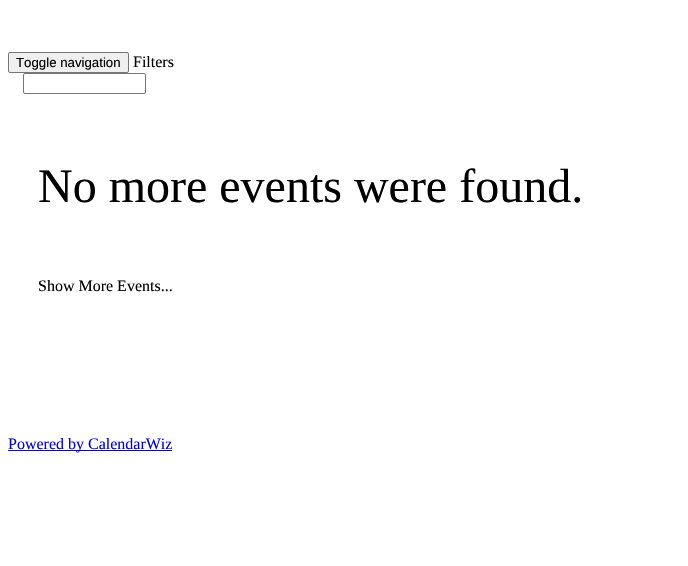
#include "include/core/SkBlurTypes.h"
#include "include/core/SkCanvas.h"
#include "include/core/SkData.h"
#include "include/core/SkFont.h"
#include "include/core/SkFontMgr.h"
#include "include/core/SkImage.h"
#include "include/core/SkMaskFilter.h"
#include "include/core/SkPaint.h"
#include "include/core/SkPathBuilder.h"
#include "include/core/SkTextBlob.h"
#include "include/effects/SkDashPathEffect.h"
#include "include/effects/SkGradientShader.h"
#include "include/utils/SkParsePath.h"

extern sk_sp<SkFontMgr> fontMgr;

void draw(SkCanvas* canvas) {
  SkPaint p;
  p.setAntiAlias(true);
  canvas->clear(SK_ColorWHITE);
  p.setColor(SkColorSetRGB(239, 239, 239));
  canvas->drawRoundRect(SkRect::MakeLTRB(8.5f, 52.5f, 128.5f, 72.5f), 1.5f, 1.5f, p);
  p.setStyle(SkPaint::kStroke_Style);
  p.setStrokeWidth(1);
  p.setColor(SkColorSetRGB(118, 118, 118));
  canvas->drawRoundRect(SkRect::MakeLTRB(8.5f, 52.5f, 128.5f, 72.5f), 1.5f, 1.5f, p);
  canvas->drawRoundRect(SkRect::MakeLTRB(23.5f, 73.5f, 145.5f, 93.5f), 1.5f, 1.5f, p);
  p.setStyle(SkPaint::kFill_Style);
  p.setColor(SkColorSetRGB(0, 0, 238));
  canvas->drawRect(SkRect::MakeLTRB(8, 450, 172, 451), p);
  SkFont font1(fontMgr->matchFamilyStyle("Liberation Sans", SkFontStyle::Normal()), 13.25f);
  font1.setSubpixel(true);
  p.setColor(SK_ColorBLACK);
  canvas->drawString("Toggle navigation", 16, 67, font1, p);
  SkFont font2(fontMgr->matchFamilyStyle("Liberation Serif", SkFontStyle::Normal()), 16);
  font2.setSubpixel(true);
  canvas->drawString("Filters", 133, 67, font2, p);
  SkFont font3(fontMgr->matchFamilyStyle("Liberation Serif", SkFontStyle::Normal()), 48);
  font3.setSubpixel(true);
  canvas->drawString("No more events were found.", 38, 202, font3, p);
  canvas->drawString("Show More Events...", 38, 291, font2, p);
  p.setColor(SkColorSetRGB(0, 0, 238));
  canvas->drawString("Powered by CalendarWiz", 8, 449, font2, p);
}
